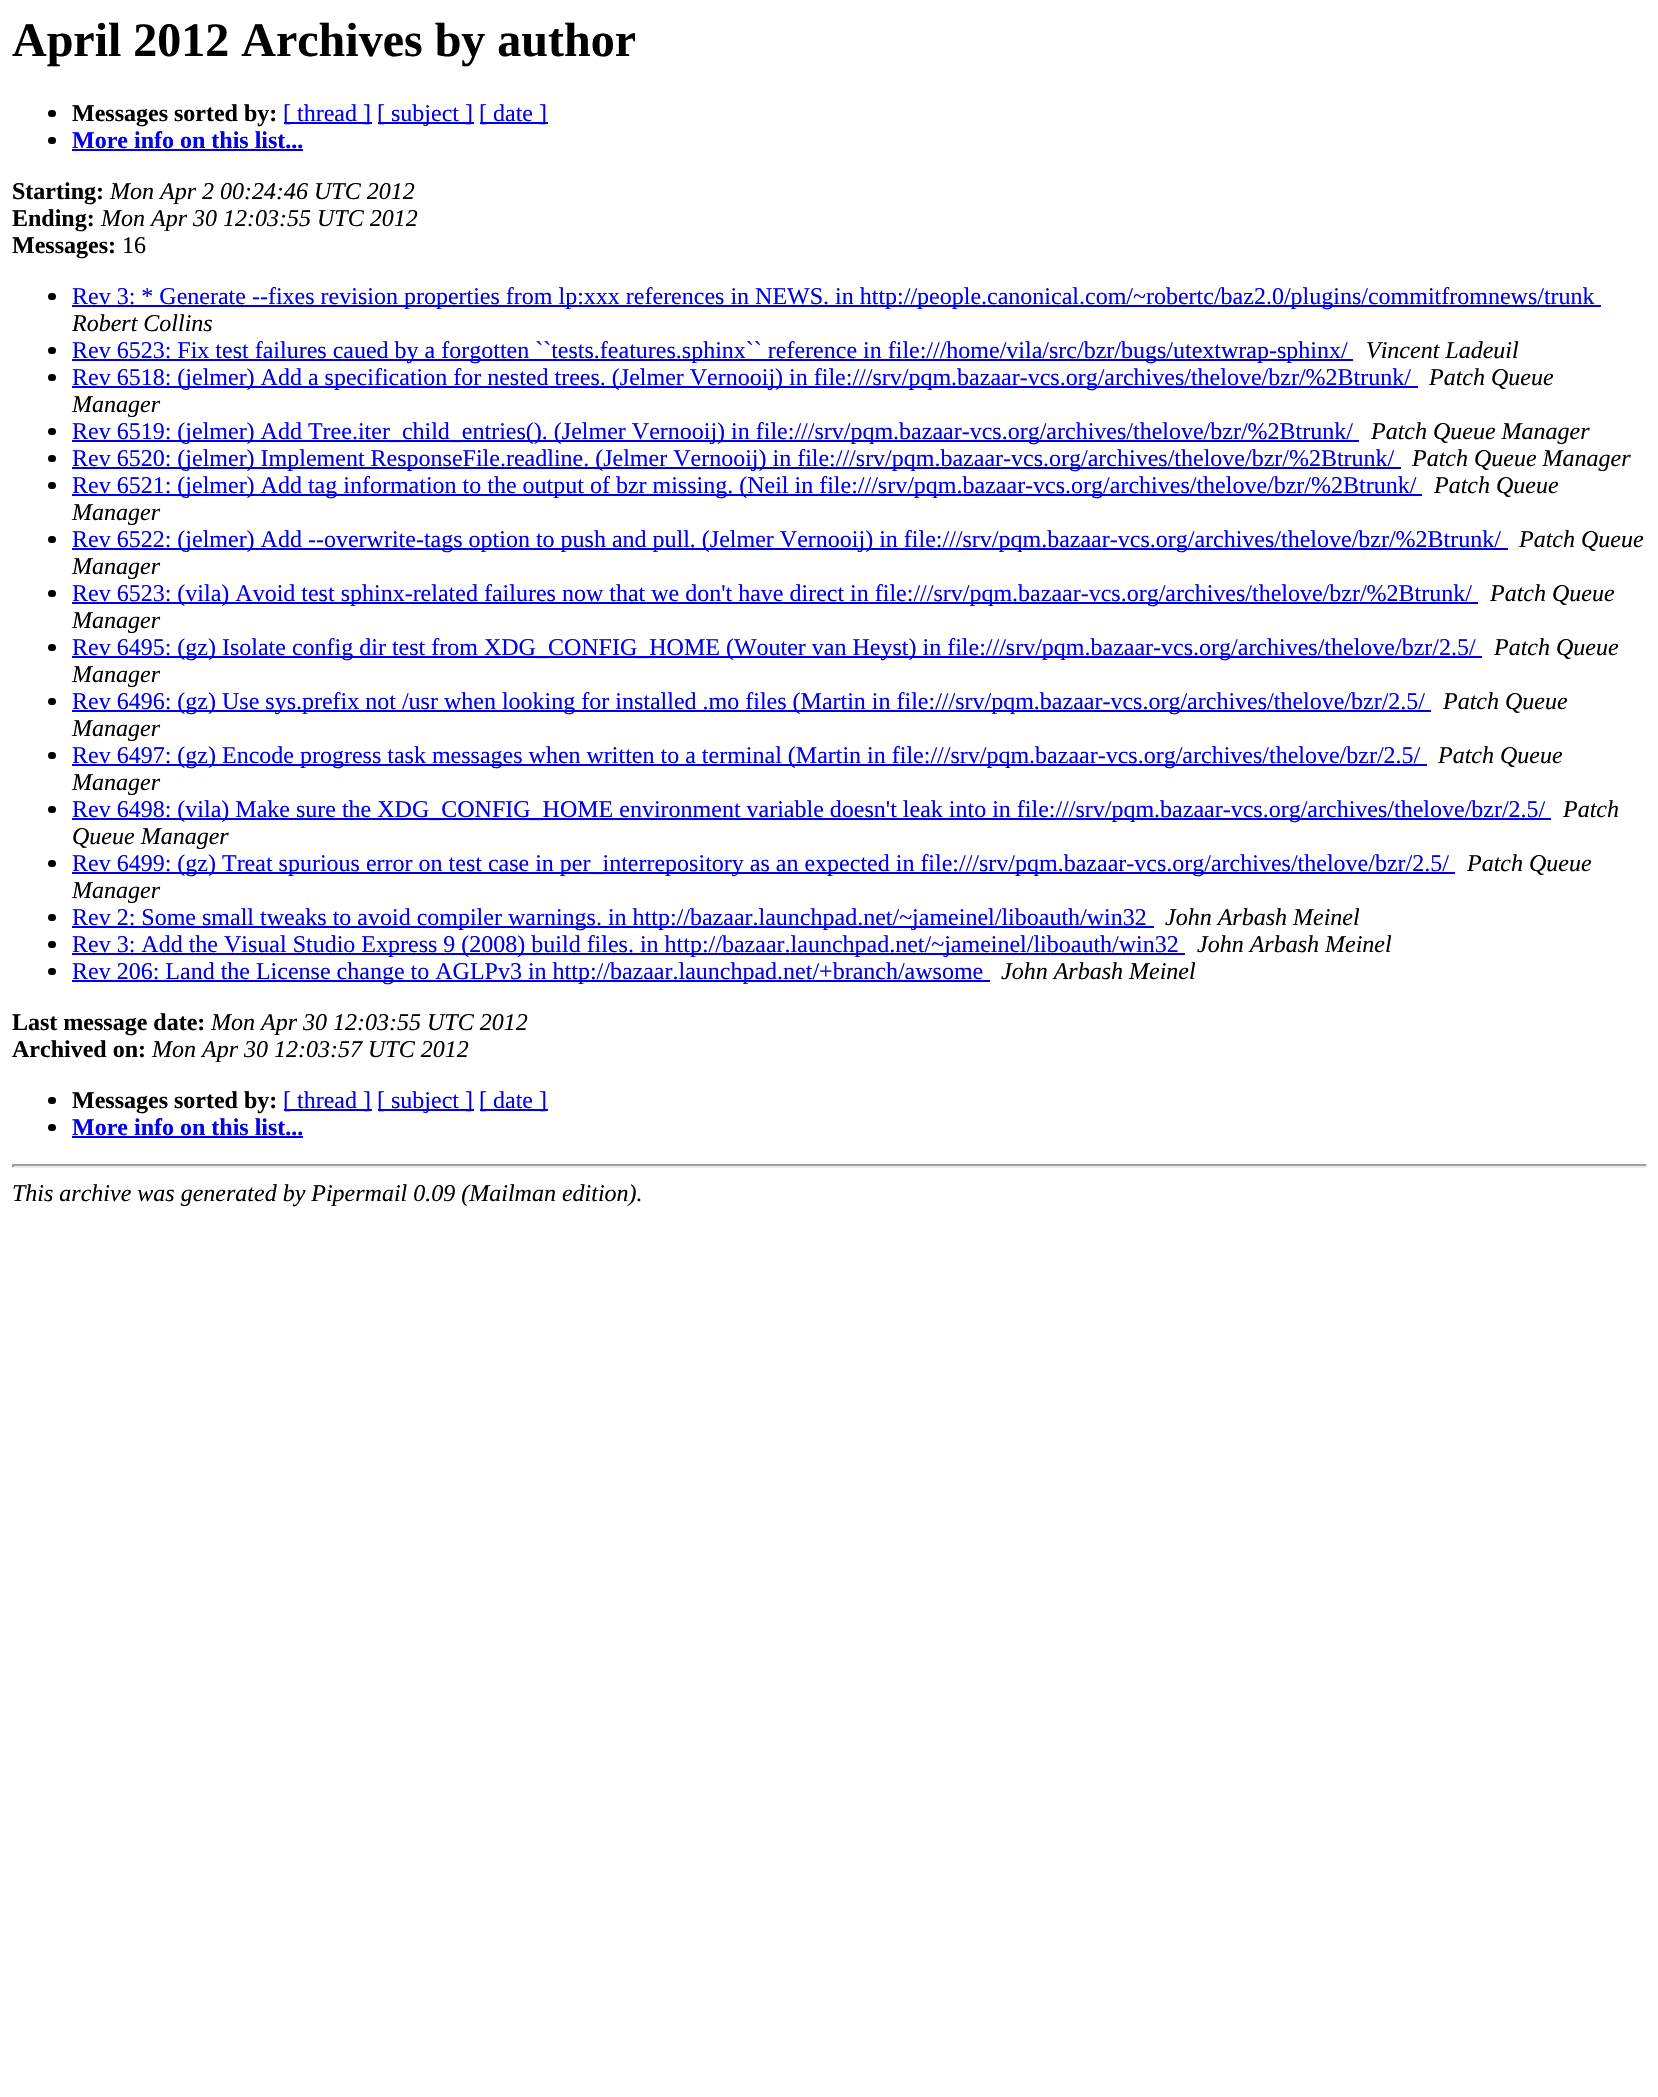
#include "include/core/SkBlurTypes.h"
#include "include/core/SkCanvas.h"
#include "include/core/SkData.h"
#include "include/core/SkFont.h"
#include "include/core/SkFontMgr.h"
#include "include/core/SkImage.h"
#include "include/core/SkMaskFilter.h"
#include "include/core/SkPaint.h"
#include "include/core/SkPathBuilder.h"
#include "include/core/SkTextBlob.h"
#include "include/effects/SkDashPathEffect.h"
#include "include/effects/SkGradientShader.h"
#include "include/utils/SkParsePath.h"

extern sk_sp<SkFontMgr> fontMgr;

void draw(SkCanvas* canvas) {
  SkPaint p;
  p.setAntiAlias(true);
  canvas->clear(SK_ColorWHITE);
  p.setColor(SK_ColorBLACK);
  canvas->drawRoundRect(SkRect::MakeLTRB(48, 110, 56, 117), 3.5f, 3.5f, p);
  p.setColor(SkColorSetRGB(0, 0, 238));
  canvas->drawRect(SkRect::MakeLTRB(284, 122, 372, 124), p);
  canvas->drawRect(SkRect::MakeLTRB(378, 122, 474, 124), p);
  canvas->drawRect(SkRect::MakeLTRB(480, 122, 548, 124), p);
  p.setColor(SK_ColorBLACK);
  canvas->drawRoundRect(SkRect::MakeLTRB(48, 137, 56, 144), 3.5f, 3.5f, p);
  p.setColor(SkColorSetRGB(0, 0, 238));
  canvas->drawRect(SkRect::MakeLTRB(72, 149, 303, 151), p);
  p.setColor(SK_ColorBLACK);
  canvas->drawRoundRect(SkRect::MakeLTRB(48, 293, 56, 300), 3.5f, 3.5f, p);
  p.setColor(SkColorSetRGB(0, 0, 238));
  canvas->drawRect(SkRect::MakeLTRB(72, 305, 1601, 307), p);
  p.setColor(SK_ColorBLACK);
  canvas->drawRoundRect(SkRect::MakeLTRB(48, 347, 56, 354), 3.5f, 3.5f, p);
  p.setColor(SkColorSetRGB(0, 0, 238));
  canvas->drawRect(SkRect::MakeLTRB(72, 359, 1353, 361), p);
  p.setColor(SK_ColorBLACK);
  canvas->drawRoundRect(SkRect::MakeLTRB(48, 374, 56, 381), 3.5f, 3.5f, p);
  p.setColor(SkColorSetRGB(0, 0, 238));
  canvas->drawRect(SkRect::MakeLTRB(72, 386, 1418, 388), p);
  p.setColor(SK_ColorBLACK);
  canvas->drawRoundRect(SkRect::MakeLTRB(48, 428, 56, 435), 3.5f, 3.5f, p);
  p.setColor(SkColorSetRGB(0, 0, 238));
  canvas->drawRect(SkRect::MakeLTRB(72, 440, 1359, 442), p);
  p.setColor(SK_ColorBLACK);
  canvas->drawRoundRect(SkRect::MakeLTRB(48, 455, 56, 462), 3.5f, 3.5f, p);
  p.setColor(SkColorSetRGB(0, 0, 238));
  canvas->drawRect(SkRect::MakeLTRB(72, 467, 1401, 469), p);
  p.setColor(SK_ColorBLACK);
  canvas->drawRoundRect(SkRect::MakeLTRB(48, 482, 56, 489), 3.5f, 3.5f, p);
  p.setColor(SkColorSetRGB(0, 0, 238));
  canvas->drawRect(SkRect::MakeLTRB(72, 494, 1422, 496), p);
  p.setColor(SK_ColorBLACK);
  canvas->drawRoundRect(SkRect::MakeLTRB(48, 536, 56, 543), 3.5f, 3.5f, p);
  p.setColor(SkColorSetRGB(0, 0, 238));
  canvas->drawRect(SkRect::MakeLTRB(72, 548, 1508, 550), p);
  p.setColor(SK_ColorBLACK);
  canvas->drawRoundRect(SkRect::MakeLTRB(48, 590, 56, 597), 3.5f, 3.5f, p);
  p.setColor(SkColorSetRGB(0, 0, 238));
  canvas->drawRect(SkRect::MakeLTRB(72, 602, 1478, 604), p);
  p.setColor(SK_ColorBLACK);
  canvas->drawRoundRect(SkRect::MakeLTRB(48, 644, 56, 651), 3.5f, 3.5f, p);
  p.setColor(SkColorSetRGB(0, 0, 238));
  canvas->drawRect(SkRect::MakeLTRB(72, 656, 1482, 658), p);
  p.setColor(SK_ColorBLACK);
  canvas->drawRoundRect(SkRect::MakeLTRB(48, 698, 56, 705), 3.5f, 3.5f, p);
  p.setColor(SkColorSetRGB(0, 0, 238));
  canvas->drawRect(SkRect::MakeLTRB(72, 710, 1431, 712), p);
  p.setColor(SK_ColorBLACK);
  canvas->drawRoundRect(SkRect::MakeLTRB(48, 752, 56, 759), 3.5f, 3.5f, p);
  p.setColor(SkColorSetRGB(0, 0, 238));
  canvas->drawRect(SkRect::MakeLTRB(72, 764, 1427, 766), p);
  p.setColor(SK_ColorBLACK);
  canvas->drawRoundRect(SkRect::MakeLTRB(48, 806, 56, 813), 3.5f, 3.5f, p);
  p.setColor(SkColorSetRGB(0, 0, 238));
  canvas->drawRect(SkRect::MakeLTRB(72, 818, 1551, 820), p);
  p.setColor(SK_ColorBLACK);
  canvas->drawRoundRect(SkRect::MakeLTRB(48, 860, 56, 867), 3.5f, 3.5f, p);
  p.setColor(SkColorSetRGB(0, 0, 238));
  canvas->drawRect(SkRect::MakeLTRB(72, 872, 1455, 874), p);
  p.setColor(SK_ColorBLACK);
  canvas->drawRoundRect(SkRect::MakeLTRB(48, 914, 56, 921), 3.5f, 3.5f, p);
  p.setColor(SkColorSetRGB(0, 0, 238));
  canvas->drawRect(SkRect::MakeLTRB(72, 926, 1154, 928), p);
  p.setColor(SK_ColorBLACK);
  canvas->drawRoundRect(SkRect::MakeLTRB(48, 941, 56, 948), 3.5f, 3.5f, p);
  p.setColor(SkColorSetRGB(0, 0, 238));
  canvas->drawRect(SkRect::MakeLTRB(72, 953, 1185, 955), p);
  p.setColor(SK_ColorBLACK);
  canvas->drawRoundRect(SkRect::MakeLTRB(48, 968, 56, 975), 3.5f, 3.5f, p);
  p.setColor(SkColorSetRGB(0, 0, 238));
  canvas->drawRect(SkRect::MakeLTRB(72, 980, 990, 982), p);
  p.setColor(SK_ColorBLACK);
  canvas->drawRoundRect(SkRect::MakeLTRB(48, 1097, 56, 1104), 3.5f, 3.5f, p);
  p.setColor(SkColorSetRGB(0, 0, 238));
  canvas->drawRect(SkRect::MakeLTRB(284, 1109, 372, 1111), p);
  canvas->drawRect(SkRect::MakeLTRB(378, 1109, 474, 1111), p);
  canvas->drawRect(SkRect::MakeLTRB(480, 1109, 548, 1111), p);
  p.setColor(SK_ColorBLACK);
  canvas->drawRoundRect(SkRect::MakeLTRB(48, 1124, 56, 1131), 3.5f, 3.5f, p);
  p.setColor(SkColorSetRGB(0, 0, 238));
  canvas->drawRect(SkRect::MakeLTRB(72, 1136, 303, 1138), p);
  p.setColor(SkColorSetRGB(159, 159, 159));
  canvas->drawRect(SkRect::MakeLTRB(12, 1164, 1647, 1166), p);
  p.setColor(SkColorSetRGB(238, 238, 238));
  canvas->drawRect(SkRect::MakeLTRB(1646, 1164, 1648, 1167), p);
  canvas->drawRect(SkRect::MakeLTRB(12, 1166, 1647, 1168), p);
  p.setColor(SkColorSetRGB(159, 159, 159));
  canvas->drawRect(SkRect::MakeLTRB(12, 1164, 14, 1167), p);
  SkFont font1(fontMgr->matchFamilyStyle("Liberation Serif", SkFontStyle::Bold()), 48);
  font1.setSubpixel(true);
  p.setColor(SK_ColorBLACK);
  canvas->drawString("April 2012 Archives by author", 12, 56, font1, p);
  SkFont font2(fontMgr->matchFamilyStyle("Liberation Serif", SkFontStyle::Bold()), 24);
  font2.setSubpixel(true);
  canvas->drawString("Messages sorted by:", 72, 121, font2, p);
  SkFont font3(fontMgr->matchFamilyStyle("Liberation Serif", SkFontStyle::Normal()), 24);
  font3.setSubpixel(true);
  p.setColor(SkColorSetRGB(0, 0, 238));
  canvas->drawString("[ thread ]", 283, 121, font3, p);
  canvas->drawString("[ subject ]", 377, 121, font3, p);
  canvas->drawString("[ date ]", 479, 121, font3, p);
  canvas->drawString("More info on this list...", 72, 148, font2, p);
  p.setColor(SK_ColorBLACK);
  canvas->drawString("Starting:", 12, 199, font2, p);
  SkFont font4(fontMgr->matchFamilyStyle("Liberation Serif", SkFontStyle::Italic()), 24);
  font4.setSubpixel(true);
  canvas->drawString("Mon Apr 2 00:24:46 UTC 2012", 110, 199, font4, p);
  canvas->drawString("Ending:", 12, 226, font2, p);
  canvas->drawString("Mon Apr 30 12:03:55 UTC 2012", 101, 226, font4, p);
  canvas->drawString("Messages:", 12, 253, font2, p);
  canvas->drawString("16", 122, 253, font3, p);
  p.setColor(SkColorSetRGB(0, 0, 238));
  canvas->drawString("Rev 3: * Generate --fixes revision properties from lp:xxx references in NEWS. in http://people.canonical.com/~robertc/baz2.0/plugins/commitfromnews/trunk", 72, 304, font3, p);
  p.setColor(SK_ColorBLACK);
  canvas->drawString("Robert Collins", 72, 331, font4, p);
  p.setColor(SkColorSetRGB(0, 0, 238));
  canvas->drawString("Rev 6523: Fix test failures caued by a forgotten ``tests.features.sphinx`` reference in file:///home/vila/src/bzr/bugs/utextwrap-sphinx/", 72, 358, font3, p);
  p.setColor(SK_ColorBLACK);
  canvas->drawString("Vincent Ladeuil", 1366, 358, font4, p);
  p.setColor(SkColorSetRGB(0, 0, 238));
  canvas->drawString("Rev 6518: (jelmer) Add a specification for nested trees. (Jelmer Vernooij) in file:///srv/pqm.bazaar-vcs.org/archives/thelove/bzr/%2Btrunk/", 72, 385, font3, p);
  p.setColor(SK_ColorBLACK);
  canvas->drawString("Patch Queue", 1429, 385, font4, p);
  canvas->drawString("Manager", 72, 412, font4, p);
  p.setColor(SkColorSetRGB(0, 0, 238));
  canvas->drawString("Rev 6519: (jelmer) Add Tree.iter_child_entries(). (Jelmer Vernooij) in file:///srv/pqm.bazaar-vcs.org/archives/thelove/bzr/%2Btrunk/", 72, 439, font3, p);
  p.setColor(SK_ColorBLACK);
  canvas->drawString("Patch Queue Manager", 1371, 439, font4, p);
  p.setColor(SkColorSetRGB(0, 0, 238));
  canvas->drawString("Rev 6520: (jelmer) Implement ResponseFile.readline. (Jelmer Vernooij) in file:///srv/pqm.bazaar-vcs.org/archives/thelove/bzr/%2Btrunk/", 72, 466, font3, p);
  p.setColor(SK_ColorBLACK);
  canvas->drawString("Patch Queue Manager", 1412, 466, font4, p);
  p.setColor(SkColorSetRGB(0, 0, 238));
  canvas->drawString("Rev 6521: (jelmer) Add tag information to the output of bzr missing. (Neil in file:///srv/pqm.bazaar-vcs.org/archives/thelove/bzr/%2Btrunk/", 72, 493, font3, p);
  p.setColor(SK_ColorBLACK);
  canvas->drawString("Patch Queue", 1434, 493, font4, p);
  canvas->drawString("Manager", 72, 520, font4, p);
  p.setColor(SkColorSetRGB(0, 0, 238));
  canvas->drawString("Rev 6522: (jelmer) Add --overwrite-tags option to push and pull. (Jelmer Vernooij) in file:///srv/pqm.bazaar-vcs.org/archives/thelove/bzr/%2Btrunk/", 72, 547, font3, p);
  p.setColor(SK_ColorBLACK);
  canvas->drawString("Patch Queue", 1519, 547, font4, p);
  canvas->drawString("Manager", 72, 574, font4, p);
  p.setColor(SkColorSetRGB(0, 0, 238));
  canvas->drawString("Rev 6523: (vila) Avoid test sphinx-related failures now that we don't have direct in file:///srv/pqm.bazaar-vcs.org/archives/thelove/bzr/%2Btrunk/", 72, 601, font3, p);
  p.setColor(SK_ColorBLACK);
  canvas->drawString("Patch Queue", 1490, 601, font4, p);
  canvas->drawString("Manager", 72, 628, font4, p);
  p.setColor(SkColorSetRGB(0, 0, 238));
  canvas->drawString("Rev 6495: (gz) Isolate config dir test from XDG_CONFIG_HOME (Wouter van Heyst) in file:///srv/pqm.bazaar-vcs.org/archives/thelove/bzr/2.5/", 72, 655, font3, p);
  p.setColor(SK_ColorBLACK);
  canvas->drawString("Patch Queue", 1494, 655, font4, p);
  canvas->drawString("Manager", 72, 682, font4, p);
  p.setColor(SkColorSetRGB(0, 0, 238));
  canvas->drawString("Rev 6496: (gz) Use sys.prefix not /usr when looking for installed .mo files (Martin in file:///srv/pqm.bazaar-vcs.org/archives/thelove/bzr/2.5/", 72, 709, font3, p);
  p.setColor(SK_ColorBLACK);
  canvas->drawString("Patch Queue", 1443, 709, font4, p);
  canvas->drawString("Manager", 72, 736, font4, p);
  p.setColor(SkColorSetRGB(0, 0, 238));
  canvas->drawString("Rev 6497: (gz) Encode progress task messages when written to a terminal (Martin in file:///srv/pqm.bazaar-vcs.org/archives/thelove/bzr/2.5/", 72, 763, font3, p);
  p.setColor(SK_ColorBLACK);
  canvas->drawString("Patch Queue", 1438, 763, font4, p);
  canvas->drawString("Manager", 72, 790, font4, p);
  p.setColor(SkColorSetRGB(0, 0, 238));
  canvas->drawString("Rev 6498: (vila) Make sure the XDG_CONFIG_HOME environment variable doesn't leak into in file:///srv/pqm.bazaar-vcs.org/archives/thelove/bzr/2.5/", 72, 817, font3, p);
  p.setColor(SK_ColorBLACK);
  canvas->drawString("Patch", 1563, 817, font4, p);
  canvas->drawString("Queue Manager", 72, 844, font4, p);
  p.setColor(SkColorSetRGB(0, 0, 238));
  canvas->drawString("Rev 6499: (gz) Treat spurious error on test case in per_interrepository as an expected in file:///srv/pqm.bazaar-vcs.org/archives/thelove/bzr/2.5/", 72, 871, font3, p);
  p.setColor(SK_ColorBLACK);
  canvas->drawString("Patch Queue", 1467, 871, font4, p);
  canvas->drawString("Manager", 72, 898, font4, p);
  p.setColor(SkColorSetRGB(0, 0, 238));
  canvas->drawString("Rev 2: Some small tweaks to avoid compiler warnings. in http://bazaar.launchpad.net/~jameinel/liboauth/win32", 72, 925, font3, p);
  p.setColor(SK_ColorBLACK);
  canvas->drawString("John Arbash Meinel", 1165, 925, font4, p);
  p.setColor(SkColorSetRGB(0, 0, 238));
  canvas->drawString("Rev 3: Add the Visual Studio Express 9 (2008) build files. in http://bazaar.launchpad.net/~jameinel/liboauth/win32", 72, 952, font3, p);
  p.setColor(SK_ColorBLACK);
  canvas->drawString("John Arbash Meinel", 1197, 952, font4, p);
  p.setColor(SkColorSetRGB(0, 0, 238));
  canvas->drawString("Rev 206: Land the License change to AGLPv3 in http://bazaar.launchpad.net/+branch/awsome", 72, 979, font3, p);
  p.setColor(SK_ColorBLACK);
  canvas->drawString("John Arbash Meinel", 1001, 979, font4, p);
  canvas->drawString("Last message date:", 12, 1030, font2, p);
  canvas->drawString("Mon Apr 30 12:03:55 UTC 2012", 211, 1030, font4, p);
  canvas->drawString("Archived on:", 12, 1057, font2, p);
  canvas->drawString("Mon Apr 30 12:03:57 UTC 2012", 152, 1057, font4, p);
  canvas->drawString("Messages sorted by:", 72, 1108, font2, p);
  p.setColor(SkColorSetRGB(0, 0, 238));
  canvas->drawString("[ thread ]", 283, 1108, font3, p);
  canvas->drawString("[ subject ]", 377, 1108, font3, p);
  canvas->drawString("[ date ]", 479, 1108, font3, p);
  canvas->drawString("More info on this list...", 72, 1135, font2, p);
  p.setColor(SK_ColorBLACK);
  canvas->drawString("This archive was generated by Pipermail 0.09 (Mailman edition).", 12, 1201, font4, p);
}
